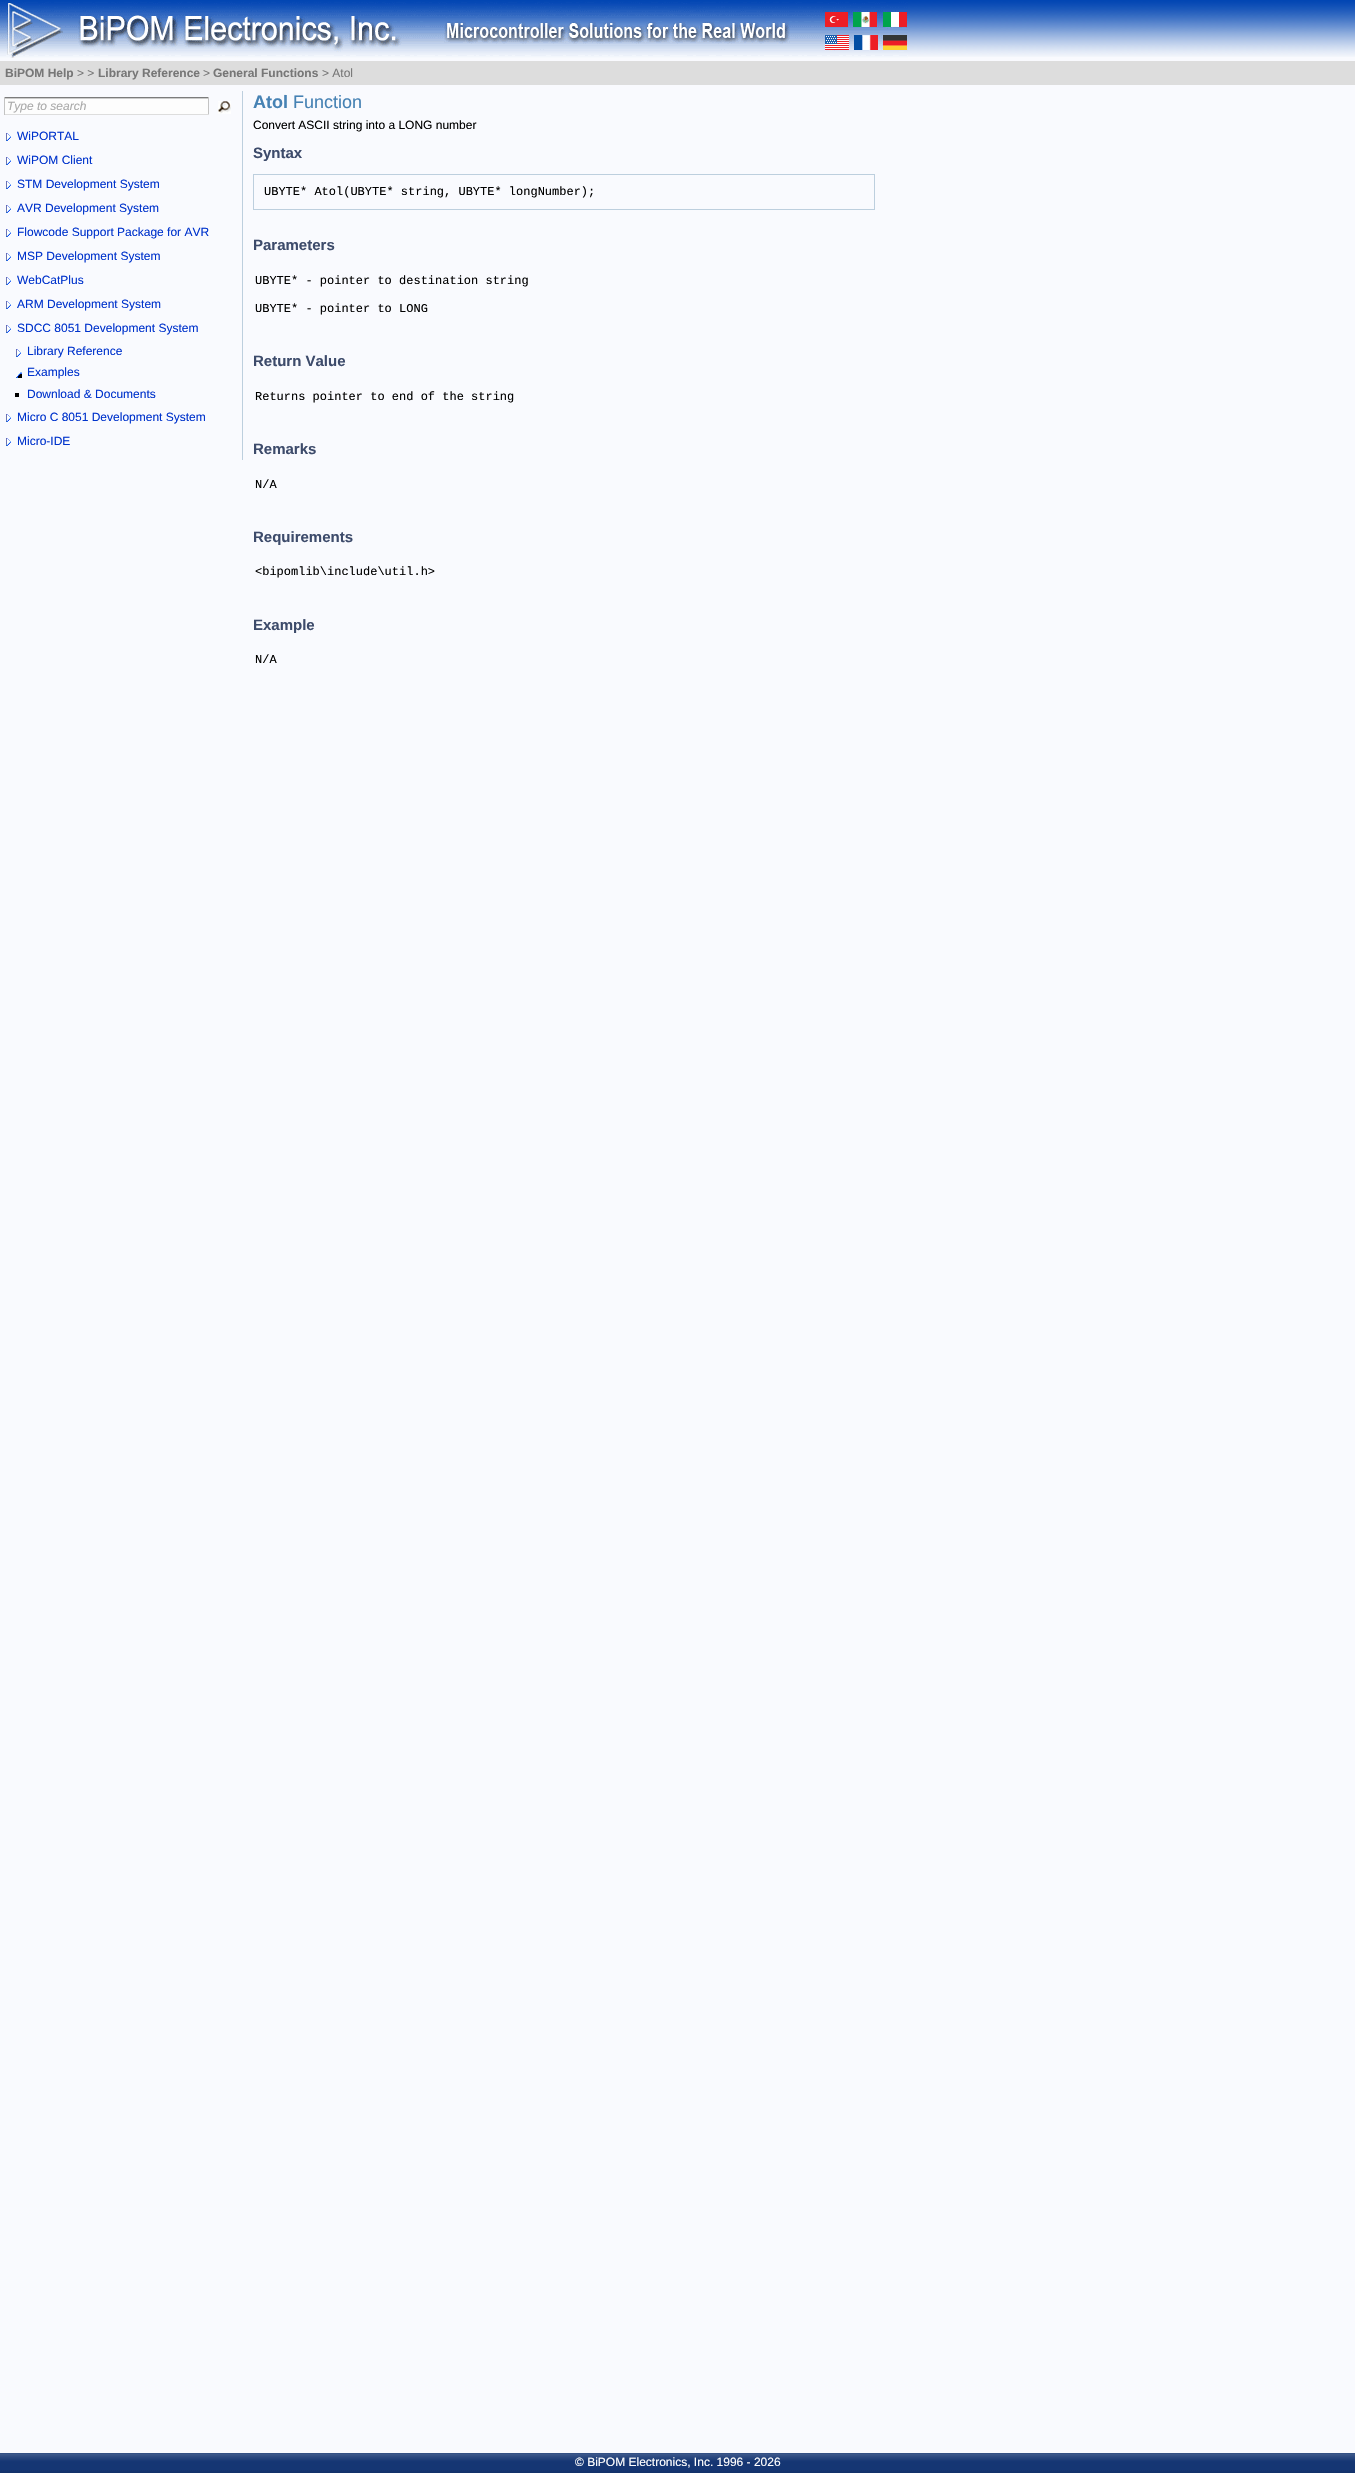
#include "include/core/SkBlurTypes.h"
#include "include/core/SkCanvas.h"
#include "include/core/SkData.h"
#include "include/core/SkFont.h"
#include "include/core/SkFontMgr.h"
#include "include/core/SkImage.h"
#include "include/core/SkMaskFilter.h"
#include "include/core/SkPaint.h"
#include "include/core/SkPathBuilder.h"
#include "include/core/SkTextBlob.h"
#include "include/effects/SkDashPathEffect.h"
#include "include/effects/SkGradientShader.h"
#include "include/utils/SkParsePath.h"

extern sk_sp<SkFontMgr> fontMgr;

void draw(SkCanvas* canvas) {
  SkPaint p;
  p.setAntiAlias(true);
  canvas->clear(SkColorSetRGB(249, 250, 254));
  canvas->drawImageRect(SkImages::DeferredFromEncodedData(SkData::MakeFromFileName("images/1.png")), SkRect::MakeLTRB(0, 0, 1355, 57), SkSamplingOptions());
  canvas->drawImageRect(SkImages::DeferredFromEncodedData(SkData::MakeFromFileName("images/2.png")), SkRect::MakeLTRB(0, 2, 908, 58), SkSamplingOptions());
  p.setColor(SkColorSetRGB(221, 221, 221));
  canvas->drawRect(SkRect::MakeLTRB(0, 61, 1355, 85), p);
  p.setColor(SkColorSetRGB(189, 207, 222));
  canvas->drawRect(SkRect::MakeLTRB(242, 91, 243, 460), p);
  p.setColor(SkColorSetRGB(253, 253, 253));
  canvas->drawRect(SkRect::MakeLTRB(5, 99, 208, 114), p);
  p.setColor(SkColorSetRGB(204, 204, 204));
  canvas->drawRect(SkRect::MakeLTRB(4, 98, 209, 99), p);
  p.setColor(SkColorSetRGB(124, 124, 124));
  canvas->drawRect(SkRect::MakeLTRB(4, 97, 209, 98), p);
  p.setColor(SkColorSetRGB(195, 195, 195));
  canvas->drawRect(SkRect::MakeLTRB(208, 97, 209, 115), p);
  p.setColor(SkColorSetRGB(221, 221, 221));
  canvas->drawRect(SkRect::MakeLTRB(4, 114, 209, 115), p);
  p.setColor(SkColorSetRGB(195, 195, 195));
  canvas->drawRect(SkRect::MakeLTRB(4, 97, 5, 115), p);
  canvas->drawImageRect(SkImages::DeferredFromEncodedData(SkData::MakeFromFileName("images/3.png")), SkRect::MakeLTRB(218, 101, 231, 114), SkSamplingOptions());
  canvas->drawImageRect(SkImages::DeferredFromEncodedData(SkData::MakeFromFileName("images/4.png")), SkRect::MakeLTRB(6, 133, 11, 141), SkSamplingOptions());
  canvas->drawImageRect(SkImages::DeferredFromEncodedData(SkData::MakeFromFileName("images/4.png")), SkRect::MakeLTRB(6, 157, 11, 165), SkSamplingOptions());
  canvas->drawImageRect(SkImages::DeferredFromEncodedData(SkData::MakeFromFileName("images/4.png")), SkRect::MakeLTRB(6, 181, 11, 189), SkSamplingOptions());
  canvas->drawImageRect(SkImages::DeferredFromEncodedData(SkData::MakeFromFileName("images/4.png")), SkRect::MakeLTRB(6, 205, 11, 213), SkSamplingOptions());
  canvas->drawImageRect(SkImages::DeferredFromEncodedData(SkData::MakeFromFileName("images/4.png")), SkRect::MakeLTRB(6, 229, 11, 237), SkSamplingOptions());
  canvas->drawImageRect(SkImages::DeferredFromEncodedData(SkData::MakeFromFileName("images/4.png")), SkRect::MakeLTRB(6, 253, 11, 261), SkSamplingOptions());
  canvas->drawImageRect(SkImages::DeferredFromEncodedData(SkData::MakeFromFileName("images/4.png")), SkRect::MakeLTRB(6, 277, 11, 285), SkSamplingOptions());
  canvas->drawImageRect(SkImages::DeferredFromEncodedData(SkData::MakeFromFileName("images/4.png")), SkRect::MakeLTRB(6, 301, 11, 309), SkSamplingOptions());
  canvas->drawImageRect(SkImages::DeferredFromEncodedData(SkData::MakeFromFileName("images/4.png")), SkRect::MakeLTRB(6, 325, 11, 333), SkSamplingOptions());
  canvas->drawImageRect(SkImages::DeferredFromEncodedData(SkData::MakeFromFileName("images/4.png")), SkRect::MakeLTRB(16, 349, 21, 357), SkSamplingOptions());
  canvas->drawImageRect(SkImages::DeferredFromEncodedData(SkData::MakeFromFileName("images/5.png")), SkRect::MakeLTRB(16, 372, 22, 378), SkSamplingOptions());
  p.setColor(SK_ColorBLACK);
  canvas->drawRect(SkRect::MakeLTRB(15, 393, 19, 397), p);
  canvas->drawImageRect(SkImages::DeferredFromEncodedData(SkData::MakeFromFileName("images/4.png")), SkRect::MakeLTRB(6, 414, 11, 422), SkSamplingOptions());
  canvas->drawImageRect(SkImages::DeferredFromEncodedData(SkData::MakeFromFileName("images/4.png")), SkRect::MakeLTRB(6, 438, 11, 446), SkSamplingOptions());
  p.setStyle(SkPaint::kStroke_Style);
  p.setStrokeWidth(1);
  p.setColor(SkColorSetRGB(189, 207, 222));
  canvas->drawRect(SkRect::MakeLTRB(253.5f, 174.5f, 874.5f, 209.5f), p);
  canvas->drawImageRect(SkImages::DeferredFromEncodedData(SkData::MakeFromFileName("images/6.png")), SkRect::MakeLTRB(0, 2453, 1355, 2473), SkSamplingOptions());
  SkFont font1(fontMgr->matchFamilyStyle("Liberation Sans", SkFontStyle::Bold()), 12);
  font1.setSubpixel(true);
  p.setStyle(SkPaint::kFill_Style);
  p.setColor(SkColorSetRGB(119, 119, 119));
  canvas->drawString("BiPOM Help", 5, 77, font1, p);
  SkFont font2(fontMgr->matchFamilyStyle("Liberation Sans", SkFontStyle::Normal()), 12);
  font2.setSubpixel(true);
  canvas->drawString("> >", 77, 77, font2, p);
  canvas->drawString("Library Reference", 98, 77, font1, p);
  canvas->drawString(">", 203, 77, font2, p);
  canvas->drawString("General Functions", 213, 77, font1, p);
  canvas->drawString("> Atol", 322, 77, font2, p);
  SkFont font3(fontMgr->matchFamilyStyle("Liberation Sans", SkFontStyle::Italic()), 12);
  font3.setSubpixel(true);
  p.setColor(SkColorSetRGB(170, 170, 170));
  canvas->drawString("Type to search", 7, 110, font3, p);
  p.setColor(SkColorSetRGB(0, 51, 204));
  canvas->drawString("WiPORTAL", 17, 140, font2, p);
  canvas->drawString("WiPOM Client", 17, 164, font2, p);
  canvas->drawString("STM Development System", 17, 188, font2, p);
  canvas->drawString("AVR Development System", 17, 212, font2, p);
  canvas->drawString("Flowcode Support Package for AVR", 17, 236, font2, p);
  canvas->drawString("MSP Development System", 17, 260, font2, p);
  canvas->drawString("WebCatPlus", 17, 284, font2, p);
  canvas->drawString("ARM Development System", 17, 308, font2, p);
  canvas->drawString("SDCC 8051 Development System", 17, 332, font2, p);
  canvas->drawString("Library Reference", 27, 355, font2, p);
  canvas->drawString("Examples", 27, 376, font2, p);
  canvas->drawString("Download & Documents", 27, 398, font2, p);
  canvas->drawString("Micro C 8051 Development System", 17, 421, font2, p);
  canvas->drawString("Micro-IDE", 17, 445, font2, p);
  SkFont font4(fontMgr->matchFamilyStyle("Liberation Sans", SkFontStyle::Bold()), 18);
  font4.setSubpixel(true);
  p.setColor(SkColorSetRGB(70, 130, 180));
  canvas->drawString("Atol", 253, 108, font4, p);
  SkFont font5(fontMgr->matchFamilyStyle("Liberation Sans", SkFontStyle::Normal()), 18);
  font5.setSubpixel(true);
  canvas->drawString("Function", 293, 108, font5, p);
  p.setColor(SK_ColorBLACK);
  canvas->drawString("Convert ASCII string into a LONG number", 253, 129, font2, p);
  SkFont font6(fontMgr->matchFamilyStyle("Liberation Sans", SkFontStyle::Bold()), 15);
  font6.setSubpixel(true);
  p.setColor(SkColorSetRGB(61, 75, 107));
  canvas->drawString("Syntax", 253, 158, font6, p);
  SkFont font7(fontMgr->matchFamilyStyle("Liberation Mono", SkFontStyle::Normal()), 12);
  font7.setSubpixel(true);
  p.setColor(SK_ColorBLACK);
  canvas->drawString("UBYTE* Atol(UBYTE* string, UBYTE* longNumber);", 264, 195, font7, p);
  p.setColor(SkColorSetRGB(61, 75, 107));
  canvas->drawString("Parameters", 253, 250, font6, p);
  p.setColor(SK_ColorBLACK);
  canvas->drawString("UBYTE* - pointer to destination string", 255, 284, font7, p);
  canvas->drawString("UBYTE* - pointer to LONG", 255, 312, font7, p);
  p.setColor(SkColorSetRGB(61, 75, 107));
  canvas->drawString("Return Value", 253, 366, font6, p);
  p.setColor(SK_ColorBLACK);
  canvas->drawString("Returns pointer to end of the string", 255, 400, font7, p);
  p.setColor(SkColorSetRGB(61, 75, 107));
  canvas->drawString("Remarks", 253, 454, font6, p);
  p.setColor(SK_ColorBLACK);
  canvas->drawString("N/A", 255, 488, font7, p);
  p.setColor(SkColorSetRGB(61, 75, 107));
  canvas->drawString("Requirements", 253, 542, font6, p);
  p.setColor(SK_ColorBLACK);
  canvas->drawString("<bipomlib\\include\\util.h>", 255, 575, font7, p);
  p.setColor(SkColorSetRGB(61, 75, 107));
  canvas->drawString("Example", 253, 630, font6, p);
  p.setColor(SK_ColorBLACK);
  canvas->drawString("N/A", 255, 663, font7, p);
  p.setColor(SK_ColorWHITE);
  canvas->drawString("© BiPOM Electronics, Inc. 1996 - 2026", 575, 2466, font2, p);
}
